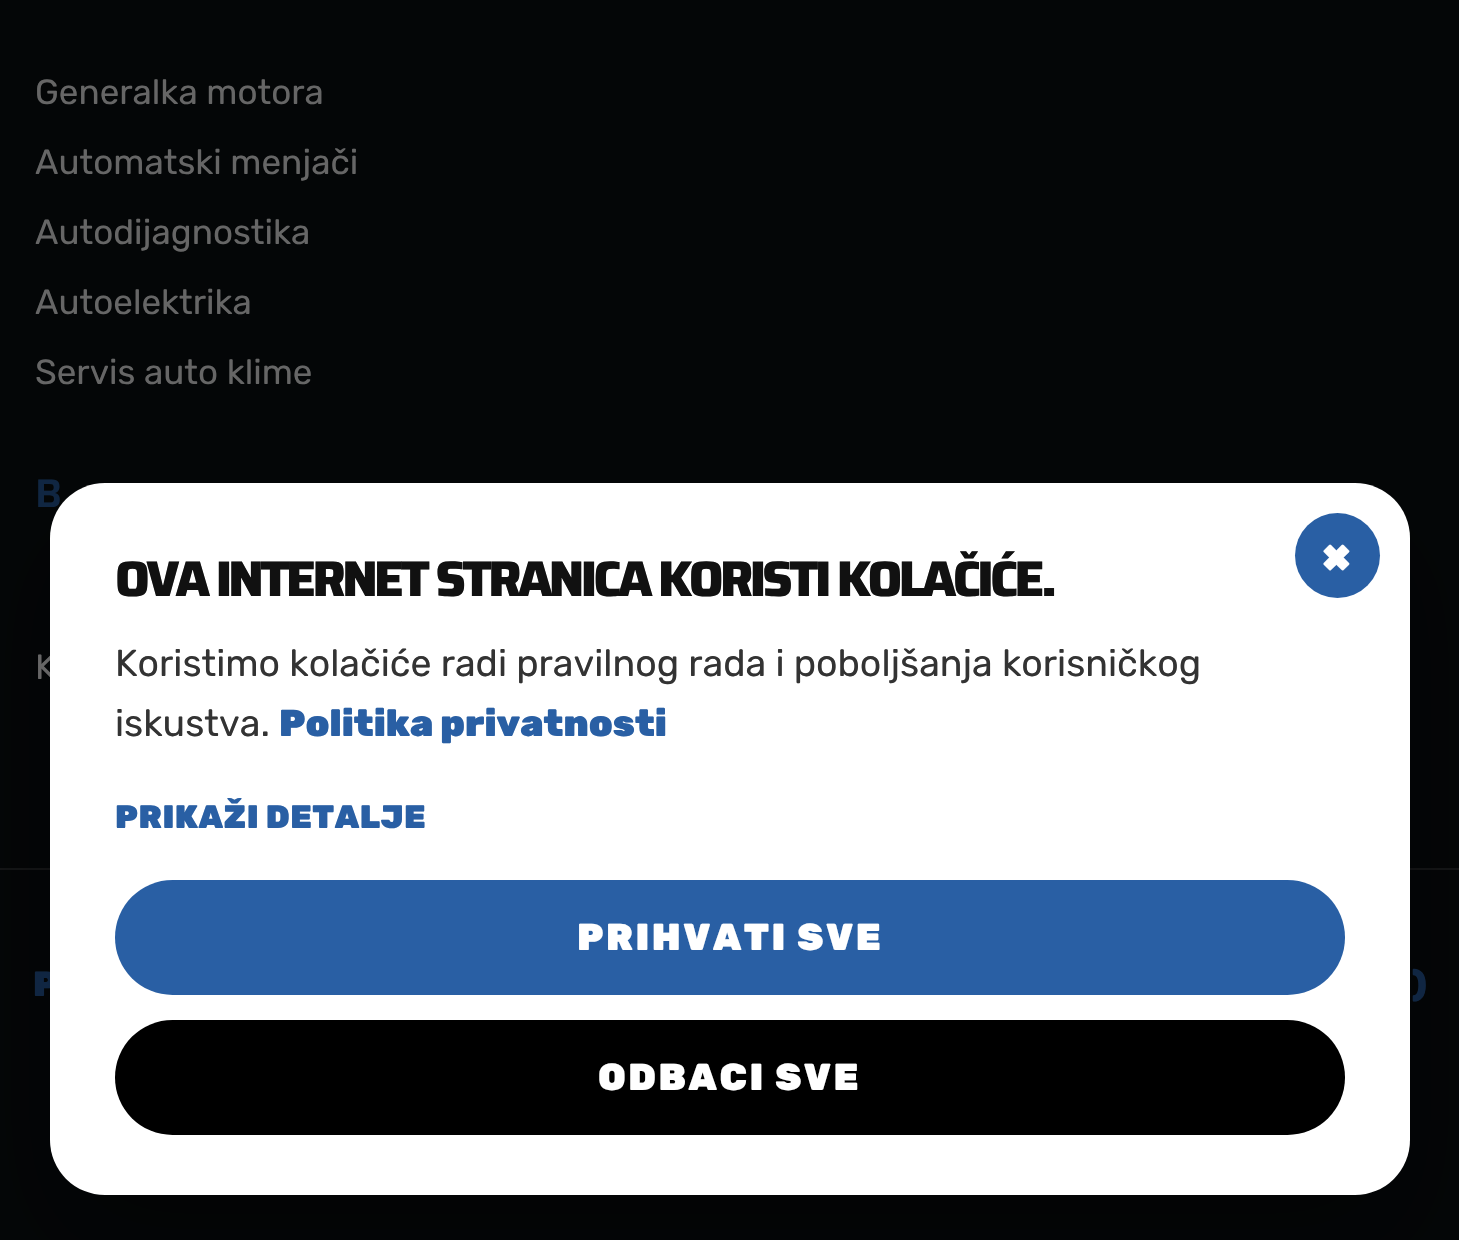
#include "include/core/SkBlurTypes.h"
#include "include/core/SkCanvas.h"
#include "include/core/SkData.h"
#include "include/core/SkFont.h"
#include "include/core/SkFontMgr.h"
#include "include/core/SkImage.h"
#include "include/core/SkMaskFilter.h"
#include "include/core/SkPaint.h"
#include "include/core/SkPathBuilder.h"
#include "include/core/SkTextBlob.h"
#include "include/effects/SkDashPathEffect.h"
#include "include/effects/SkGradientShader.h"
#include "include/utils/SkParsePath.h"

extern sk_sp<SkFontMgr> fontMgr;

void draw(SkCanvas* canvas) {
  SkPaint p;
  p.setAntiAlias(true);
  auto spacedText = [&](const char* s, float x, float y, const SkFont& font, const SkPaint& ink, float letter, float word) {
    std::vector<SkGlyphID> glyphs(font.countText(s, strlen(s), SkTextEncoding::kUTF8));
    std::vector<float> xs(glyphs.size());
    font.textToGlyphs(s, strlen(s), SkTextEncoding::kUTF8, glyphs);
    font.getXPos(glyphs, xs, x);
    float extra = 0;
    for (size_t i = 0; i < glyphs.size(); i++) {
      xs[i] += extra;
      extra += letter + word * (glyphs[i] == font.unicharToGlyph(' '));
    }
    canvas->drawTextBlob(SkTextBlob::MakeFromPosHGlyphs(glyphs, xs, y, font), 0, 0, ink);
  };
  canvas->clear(SkColorSetRGB(4, 6, 7));
  p.setColor(SkColorSetRGB(21, 22, 23));
  canvas->drawRect(SkRect::MakeLTRB(0, 868, 1459, 870), p);
  p.setColor(SkColorSetARGB(89, 0, 0, 0));
  p.setMaskFilter(SkMaskFilter::MakeBlur(kNormal_SkBlurStyle, 56));
  canvas->drawRoundRect(SkRect::MakeLTRB(50, 533, 1410, 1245), 55, 55, p);
  p.setMaskFilter(nullptr);
  SkFont font1(fontMgr->matchFamilyStyle("Rubik", SkFontStyle::Normal()), 35);
  font1.setSubpixel(true);
  p.setColor(SkColorSetRGB(102, 102, 102));
  canvas->drawString("Generalka motora", 35, 104, font1, p);
  canvas->drawString("Automatski menjači", 35, 174, font1, p);
  canvas->drawString("Autodijagnostika", 35, 244, font1, p);
  canvas->drawString("Autoelektrika", 35, 314, font1, p);
  canvas->drawString("Servis auto klime", 35, 384, font1, p);
  SkFont font2(fontMgr->matchFamilyStyle("Saira", SkFontStyle(600, SkFontStyle::kNormal_Width, SkFontStyle::kUpright_Slant)), 40);
  font2.setSubpixel(true);
  p.setColor(SkColorSetRGB(16, 38, 66));
  spacedText("B", 35, 507, font2, p, -1, 0);
  p.setColor(SkColorSetRGB(102, 102, 102));
  canvas->drawString("K", 35, 679, font1, p);
  SkFont font3(fontMgr->matchFamilyStyle("Rubik", SkFontStyle(900, SkFontStyle::kNormal_Width, SkFontStyle::kUpright_Slant)), 35);
  font3.setSubpixel(true);
  p.setColor(SkColorSetRGB(16, 38, 66));
  canvas->drawString("P", 33, 996, font3, p);
  canvas->drawString(")", 1412, 996, font3, p);
  p.setColor(SK_ColorWHITE);
  canvas->drawRoundRect(SkRect::MakeLTRB(50, 483, 1410, 1195), 55, 55, p);
  SkFont font4(fontMgr->matchFamilyStyle("Saira", SkFontStyle(800, SkFontStyle::kNormal_Width, SkFontStyle::kUpright_Slant)), 50);
  font4.setSubpixel(true);
  p.setColor(SkColorSetRGB(17, 17, 17));
  spacedText("OVA INTERNET STRANICA KORISTI KOLAČIĆE.", 115, 596, font4, p, -3.75f, 0);
  p.setColor(SkColorSetRGB(41, 95, 164));
  canvas->drawCircle(1337.5f, 555.5f, 42.5f, p);
  SkFont font5(fontMgr->matchFamilyStyle("Rubik", SkFontStyle(900, SkFontStyle::kNormal_Width, SkFontStyle::kUpright_Slant)), 45);
  font5.setSubpixel(true);
  p.setColor(SK_ColorWHITE);
  spacedText("×", 1322, 571, font5, p, 2.5f, 0);
  SkFont font6(fontMgr->matchFamilyStyle("Rubik", SkFontStyle::Normal()), 37.5f);
  font6.setSubpixel(true);
  p.setColor(SkColorSetRGB(51, 51, 51));
  canvas->drawString("Koristimo kolačiće radi pravilnog rada i poboljšanja korisničkog", 115, 676, font6, p);
  canvas->drawString("iskustva.", 115, 736, font6, p);
  SkFont font7(fontMgr->matchFamilyStyle("Rubik", SkFontStyle(900, SkFontStyle::kNormal_Width, SkFontStyle::kUpright_Slant)), 37.5f);
  font7.setSubpixel(true);
  p.setColor(SkColorSetRGB(41, 95, 164));
  canvas->drawString("Politika privatnosti", 279, 736, font7, p);
  SkFont font8(fontMgr->matchFamilyStyle("Rubik", SkFontStyle(900, SkFontStyle::kNormal_Width, SkFontStyle::kUpright_Slant)), 32.5f);
  font8.setSubpixel(true);
  spacedText("PRIKAŽI DETALJE", 115, 828, font8, p, 0.5f, 0);
  canvas->drawRoundRect(SkRect::MakeLTRB(115, 880, 1345, 995), 57.5f, 57.5f, p);
  p.setColor(SK_ColorWHITE);
  spacedText("PRIHVATI SVE", 577, 950, font7, p, 2.5f, 0);
  p.setColor(SK_ColorBLACK);
  canvas->drawRoundRect(SkRect::MakeLTRB(115, 1020, 1345, 1135), 57.5f, 57.5f, p);
  p.setColor(SK_ColorWHITE);
  spacedText("ODBACI SVE", 598, 1090, font7, p, 2.5f, 0);
}
